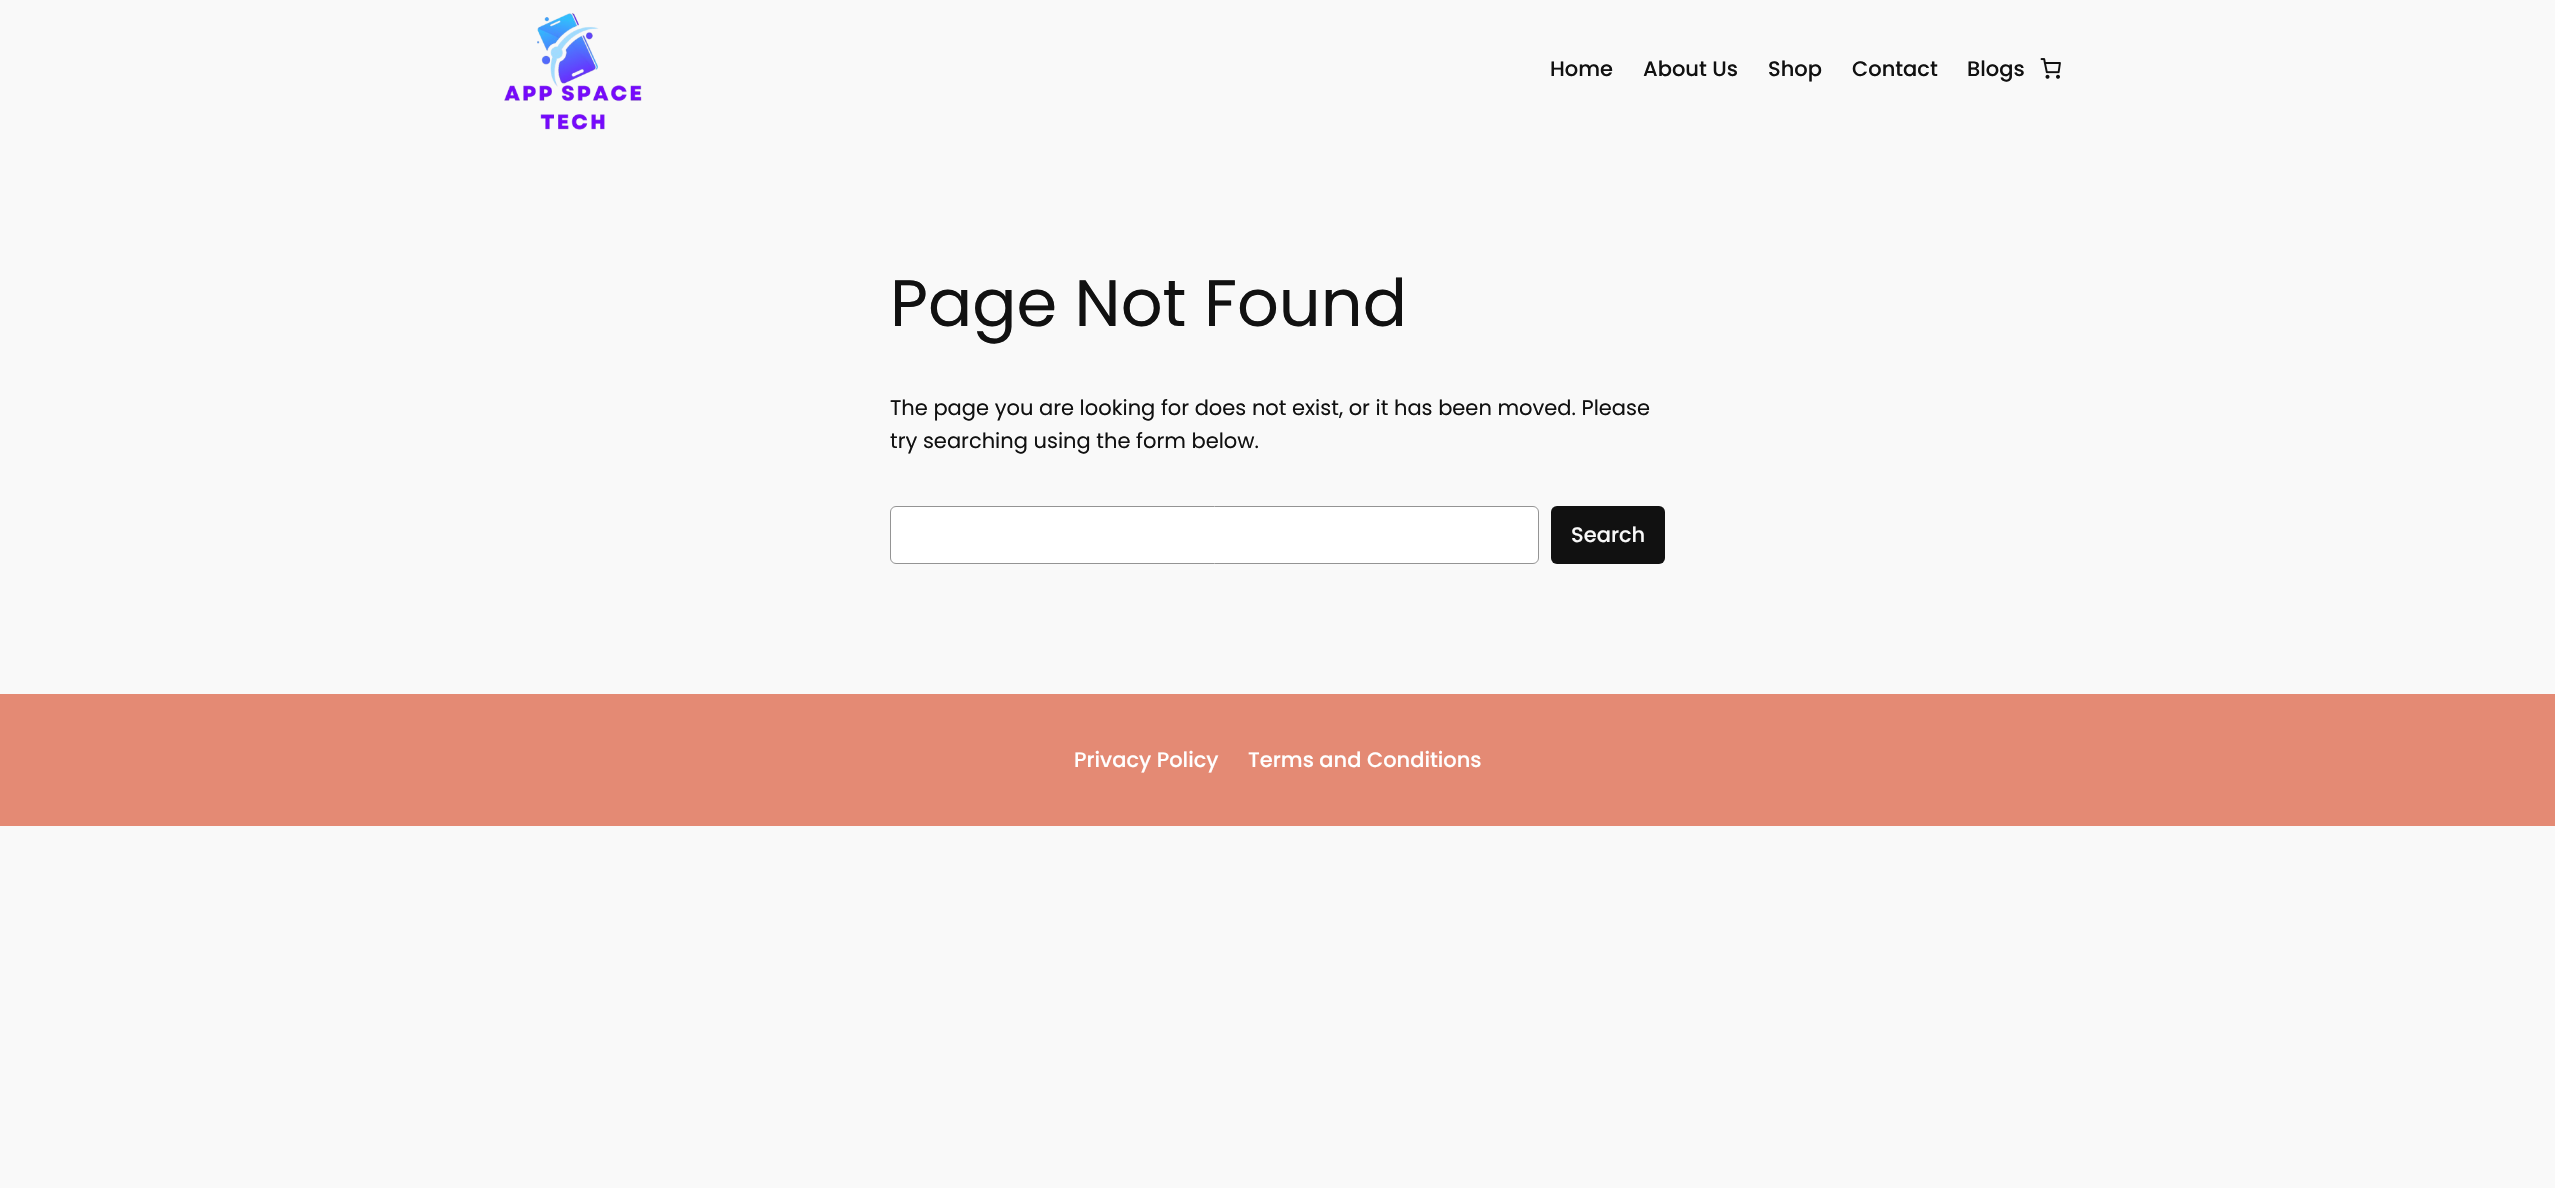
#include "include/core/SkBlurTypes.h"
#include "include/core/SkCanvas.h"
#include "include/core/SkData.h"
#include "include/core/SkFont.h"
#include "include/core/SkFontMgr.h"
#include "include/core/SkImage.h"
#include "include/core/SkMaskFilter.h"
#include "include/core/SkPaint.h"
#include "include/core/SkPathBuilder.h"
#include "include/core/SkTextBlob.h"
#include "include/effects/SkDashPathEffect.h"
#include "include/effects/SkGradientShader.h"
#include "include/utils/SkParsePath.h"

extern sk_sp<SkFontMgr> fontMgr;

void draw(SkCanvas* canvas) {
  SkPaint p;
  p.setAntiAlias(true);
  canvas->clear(SkColorSetRGB(249, 249, 249));
  canvas->drawImageRect(SkImages::DeferredFromEncodedData(SkData::MakeFromFileName("images/1.png")), SkRect::MakeLTRB(504, 13, 642, 130), SkSamplingOptions());
  canvas->drawImageRect(SkImages::DeferredFromEncodedData(SkData::MakeFromFileName("images/2.png")), SkRect::MakeLTRB(2040, 58, 2061, 79), SkSamplingOptions());
  p.setColor(SK_ColorWHITE);
  canvas->drawRoundRect(SkRect::MakeLTRB(890.5f, 506.5f, 1538.5f, 563.5f), 5.5f, 5.5f, p);
  p.setStyle(SkPaint::kStroke_Style);
  p.setStrokeWidth(1);
  p.setColor(SkColorSetRGB(148, 148, 148));
  canvas->drawRoundRect(SkRect::MakeLTRB(890.5f, 506.5f, 1538.5f, 563.5f), 5.5f, 5.5f, p);
  p.setStyle(SkPaint::kFill_Style);
  p.setColor(SkColorSetRGB(17, 17, 17));
  canvas->drawRoundRect(SkRect::MakeLTRB(1551, 506, 1665, 564), 6, 6, p);
  p.setColor(SkColorSetRGB(228, 138, 116));
  canvas->drawRect(SkRect::MakeLTRB(0, 694, 2555, 826), p);
  SkFont font1(fontMgr->matchFamilyStyle("Poppins", SkFontStyle(500, SkFontStyle::kNormal_Width, SkFontStyle::kUpright_Slant)), 21);
  font1.setSubpixel(true);
  p.setColor(SkColorSetRGB(17, 17, 17));
  canvas->drawString("Home", 1550, 76, font1, p);
  canvas->drawString("About Us", 1643, 76, font1, p);
  canvas->drawString("Shop", 1768, 76, font1, p);
  canvas->drawString("Contact", 1852, 76, font1, p);
  canvas->drawString("Blogs", 1967, 76, font1, p);
  SkFont font2(fontMgr->matchFamilyStyle("Poppins", SkFontStyle::Normal()), 65.5f);
  font2.setSubpixel(true);
  canvas->drawString("Page Not Found", 890, 326, font2, p);
  SkFont font3(fontMgr->matchFamilyStyle("Poppins", SkFontStyle::Normal()), 21);
  font3.setSubpixel(true);
  canvas->drawString("The page you are looking for does not exist, or it has been moved. Please", 890, 415, font3, p);
  canvas->drawString("try searching using the form below.", 890, 448, font3, p);
  p.setColor(SkColorSetRGB(249, 249, 249));
  canvas->drawString("Search", 1571, 542, font1, p);
  p.setColor(SK_ColorWHITE);
  canvas->drawString("Privacy Policy", 1074, 767, font1, p);
  canvas->drawString("Terms and Conditions", 1248, 767, font1, p);
}
